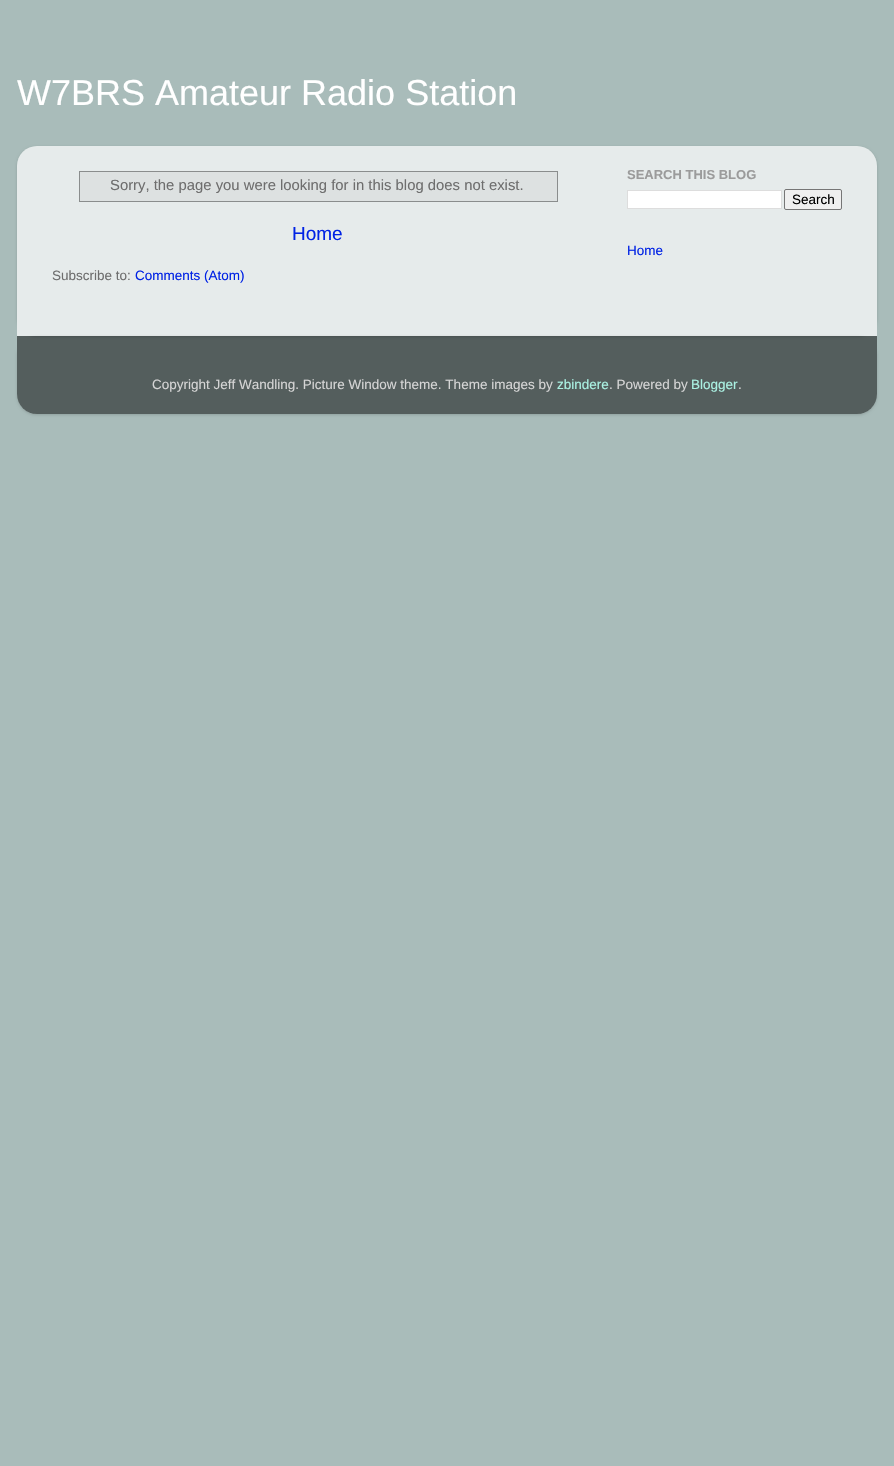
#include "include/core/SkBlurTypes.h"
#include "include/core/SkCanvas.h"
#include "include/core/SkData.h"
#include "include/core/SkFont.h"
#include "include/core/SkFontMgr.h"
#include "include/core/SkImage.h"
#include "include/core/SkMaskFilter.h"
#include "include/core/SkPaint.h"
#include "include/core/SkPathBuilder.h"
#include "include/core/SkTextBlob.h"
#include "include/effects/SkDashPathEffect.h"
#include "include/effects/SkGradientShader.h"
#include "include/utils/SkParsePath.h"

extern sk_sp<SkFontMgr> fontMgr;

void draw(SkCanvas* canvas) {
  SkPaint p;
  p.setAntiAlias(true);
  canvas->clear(SkColorSetRGB(169, 188, 186));
  canvas->save();
  canvas->clipPath(SkPathBuilder(SkPathFillType::kEvenOdd).moveTo(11, 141).lineTo(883, 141).lineTo(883, 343).lineTo(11, 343).close().moveTo(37, 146).lineTo(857, 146).cubicTo(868, 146, 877, 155, 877, 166).lineTo(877, 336).lineTo(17, 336).lineTo(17, 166).cubicTo(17, 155, 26, 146, 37, 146).close().detach(), true);
  p.setColor(SkColorSetARGB(38, 0, 0, 0));
  p.setMaskFilter(SkMaskFilter::MakeBlur(kNormal_SkBlurStyle, 1.5f));
  canvas->drawRoundRect(SkRect::MakeLTRB(17, 147, 877, 337), 20, 20, p);
  p.setMaskFilter(nullptr);
  canvas->restore();
  canvas->drawImageRect(SkImages::DeferredFromEncodedData(SkData::MakeFromFileName("images/1.png")), SkRect::MakeLTRB(17, 146, 877, 336), SkSamplingOptions());
  p.setStyle(SkPaint::kStroke_Style);
  p.setStrokeWidth(1);
  p.setColor(SkColorSetRGB(138, 141, 141));
  canvas->drawRect(SkRect::MakeLTRB(79.5f, 171.5f, 557.5f, 201.5f), p);
  p.setStyle(SkPaint::kFill_Style);
  p.setColor(SkColorSetRGB(221, 225, 225));
  canvas->drawRect(SkRect::MakeLTRB(80, 172, 557, 201), p);
  p.setColor(SK_ColorWHITE);
  canvas->drawRect(SkRect::MakeLTRB(627.5f, 190.5f, 781.5f, 208.5f), p);
  p.setStyle(SkPaint::kStroke_Style);
  p.setColor(SkColorSetRGB(221, 221, 221));
  canvas->drawRect(SkRect::MakeLTRB(627.5f, 190.5f, 781.5f, 208.5f), p);
  p.setStyle(SkPaint::kFill_Style);
  p.setColor(SkColorSetRGB(239, 239, 239));
  canvas->drawRoundRect(SkRect::MakeLTRB(784.5f, 189.5f, 841.5f, 209.5f), 1.5f, 1.5f, p);
  p.setStyle(SkPaint::kStroke_Style);
  p.setColor(SkColorSetRGB(118, 118, 118));
  canvas->drawRoundRect(SkRect::MakeLTRB(784.5f, 189.5f, 841.5f, 209.5f), 1.5f, 1.5f, p);
  canvas->save();
  canvas->clipPath(SkPathBuilder(SkPathFillType::kEvenOdd).moveTo(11, 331).lineTo(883, 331).lineTo(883, 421).lineTo(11, 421).close().moveTo(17, 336).lineTo(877, 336).lineTo(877, 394).cubicTo(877, 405, 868, 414, 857, 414).lineTo(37, 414).cubicTo(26, 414, 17, 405, 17, 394).close().detach(), true);
  p.setStyle(SkPaint::kFill_Style);
  p.setColor(SkColorSetARGB(38, 0, 0, 0));
  p.setMaskFilter(SkMaskFilter::MakeBlur(kNormal_SkBlurStyle, 1.5f));
  canvas->drawRoundRect(SkRect::MakeLTRB(17, 337, 877, 415), 20, 20, p);
  p.setMaskFilter(nullptr);
  canvas->restore();
  canvas->drawImageRect(SkImages::DeferredFromEncodedData(SkData::MakeFromFileName("images/2.png")), SkRect::MakeLTRB(17, 336, 877, 414), SkSamplingOptions());
  SkFont font1(fontMgr->matchFamilyStyle("Liberation Sans", SkFontStyle::Normal()), 36);
  font1.setSubpixel(true);
  p.setColor(SK_ColorWHITE);
  canvas->drawString("W7BRS Amateur Radio Station", 17, 105, font1, p);
  SkFont font2(fontMgr->matchFamilyStyle("Liberation Sans", SkFontStyle::Normal()), 14.85f);
  font2.setSubpixel(true);
  p.setColor(SkColorSetRGB(110, 110, 110));
  canvas->drawString("Sorry, the page you were looking for in this blog does not exist.", 110, 190, font2, p);
  SkFont font3(fontMgr->matchFamilyStyle("Liberation Sans", SkFontStyle::Normal()), 19);
  font3.setSubpixel(true);
  p.setColor(SkColorSetRGB(0, 34, 229));
  canvas->drawString("Home", 292, 240, font3, p);
  SkFont font4(fontMgr->matchFamilyStyle("Liberation Sans", SkFontStyle::Normal()), 13.5f);
  font4.setSubpixel(true);
  p.setColor(SkColorSetRGB(110, 110, 110));
  canvas->drawString("Subscribe to:", 52, 280, font4, p);
  p.setColor(SkColorSetRGB(0, 34, 229));
  canvas->drawString("Comments (Atom)", 135, 280, font4, p);
  SkFont font5(fontMgr->matchFamilyStyle("Liberation Sans", SkFontStyle::Bold()), 13);
  font5.setSubpixel(true);
  p.setColor(SkColorSetRGB(155, 155, 155));
  canvas->drawString("SEARCH THIS BLOG", 627, 179, font5, p);
  p.setColor(SK_ColorBLACK);
  canvas->drawString("Search", 792, 204, font4, p);
  p.setColor(SkColorSetRGB(0, 34, 229));
  canvas->drawString("Home", 627, 255, font4, p);
  p.setColor(SkColorSetRGB(213, 213, 213));
  canvas->drawString("Copyright Jeff Wandling. Picture Window theme. Theme images by", 152, 389, font4, p);
  p.setColor(SkColorSetRGB(170, 241, 226));
  canvas->drawString("zbindere", 557, 389, font4, p);
  p.setColor(SkColorSetRGB(213, 213, 213));
  canvas->drawString(". Powered by", 609, 389, font4, p);
  p.setColor(SkColorSetRGB(170, 241, 226));
  canvas->drawString("Blogger", 691, 389, font4, p);
  p.setColor(SkColorSetRGB(213, 213, 213));
  canvas->drawString(".", 738, 389, font4, p);
}
